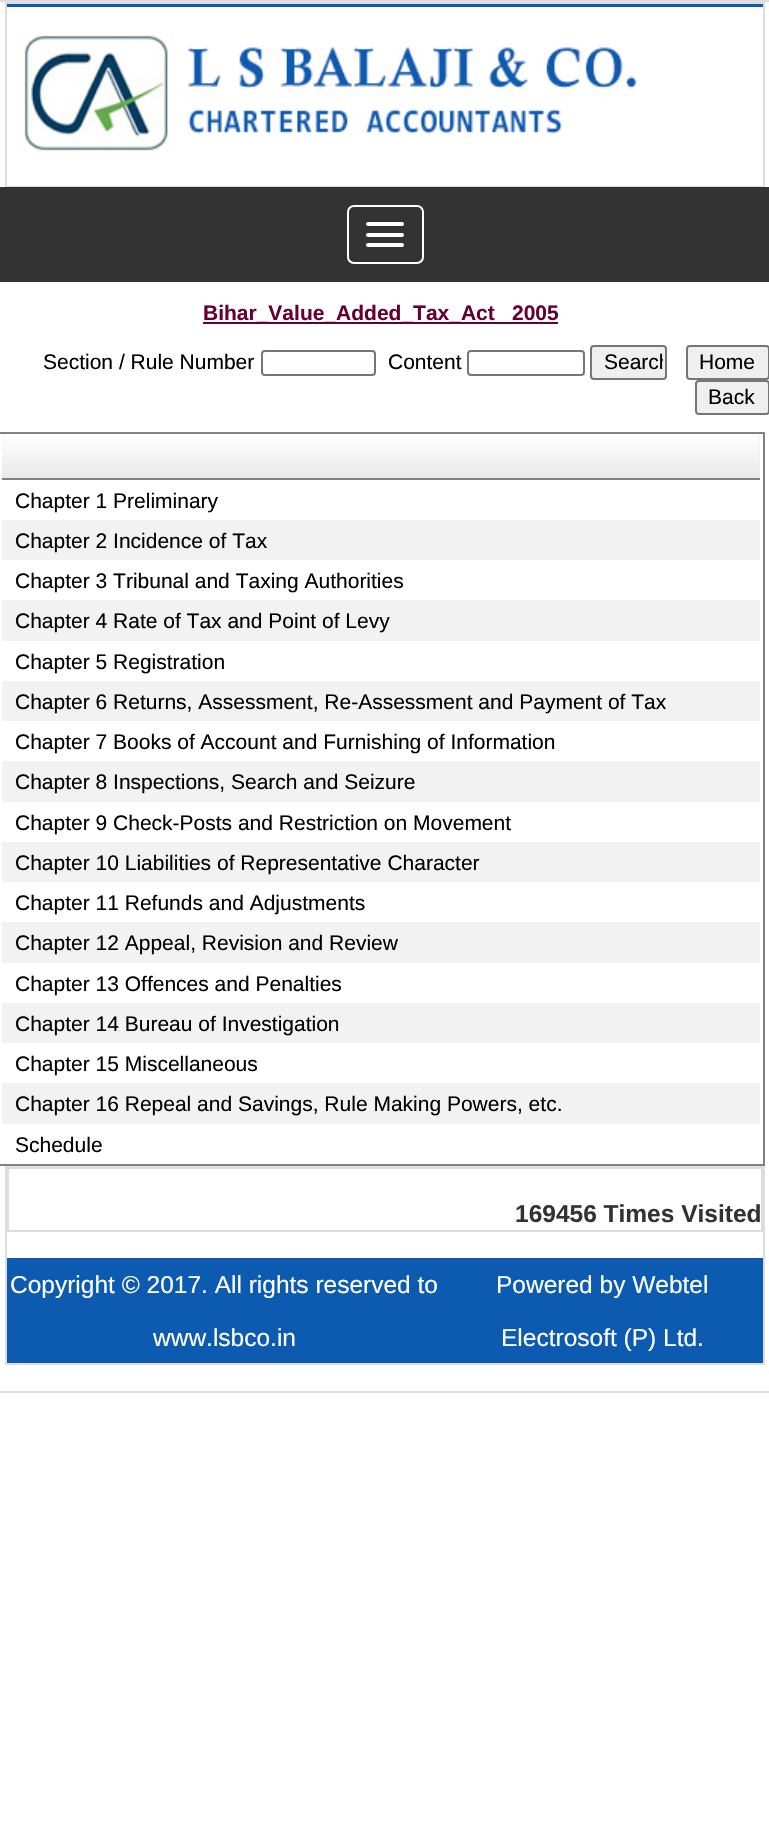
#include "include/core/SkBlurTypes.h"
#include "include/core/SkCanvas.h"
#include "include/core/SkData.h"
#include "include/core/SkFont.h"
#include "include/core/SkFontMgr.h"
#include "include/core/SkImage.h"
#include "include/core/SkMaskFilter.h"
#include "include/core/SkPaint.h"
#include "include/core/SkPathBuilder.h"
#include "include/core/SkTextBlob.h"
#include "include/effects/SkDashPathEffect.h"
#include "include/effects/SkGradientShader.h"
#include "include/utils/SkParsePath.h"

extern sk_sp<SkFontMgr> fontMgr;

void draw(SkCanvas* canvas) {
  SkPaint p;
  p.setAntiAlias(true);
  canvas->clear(SK_ColorWHITE);
  p.setStyle(SkPaint::kStroke_Style);
  p.setStrokeWidth(2);
  p.setColor(SkColorSetRGB(221, 221, 221));
  canvas->drawRect(SkRect::MakeLTRB(-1, 1, 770, 1392), p);
  p.setStyle(SkPaint::kFill_Style);
  canvas->drawRect(SkRect::MakeLTRB(5, 2, 765, 4), p);
  canvas->drawRect(SkRect::MakeLTRB(763, 2, 765, 187), p);
  canvas->drawRect(SkRect::MakeLTRB(5, 186, 765, 187), p);
  canvas->drawRect(SkRect::MakeLTRB(5, 2, 7, 187), p);
  p.setColor(SkColorSetRGB(13, 91, 176));
  canvas->drawRect(SkRect::MakeLTRB(7, 4, 763, 7), p);
  canvas->drawImageRect(SkImages::DeferredFromEncodedData(SkData::MakeFromFileName("images/1.png")), SkRect::MakeLTRB(7, 7, 763, 151), SkSamplingOptions());
  p.setColor(SkColorSetRGB(51, 51, 51));
  canvas->drawRect(SkRect::MakeLTRB(0, 187, 769, 282), p);
  p.setStyle(SkPaint::kStroke_Style);
  p.setColor(SK_ColorWHITE);
  canvas->drawRoundRect(SkRect::MakeLTRB(348, 206, 423, 263), 6, 6, p);
  p.setStyle(SkPaint::kFill_Style);
  canvas->drawRoundRect(SkRect::MakeLTRB(366, 222, 404, 226), 2, 2, p);
  canvas->drawRoundRect(SkRect::MakeLTRB(366, 233, 404, 237), 2, 2, p);
  canvas->drawRoundRect(SkRect::MakeLTRB(366, 243, 404, 247), 2, 2, p);
  p.setColor(SkColorSetRGB(102, 0, 51));
  canvas->drawRect(SkRect::MakeLTRB(203, 322, 558, 324), p);
  p.setStyle(SkPaint::kStroke_Style);
  p.setColor(SkColorSetRGB(118, 118, 118));
  canvas->drawRoundRect(SkRect::MakeLTRB(262, 351, 375, 375), 3, 3, p);
  canvas->drawRoundRect(SkRect::MakeLTRB(468, 351, 584, 375), 3, 3, p);
  p.setStyle(SkPaint::kFill_Style);
  p.setColor(SkColorSetRGB(239, 239, 239));
  canvas->drawRoundRect(SkRect::MakeLTRB(591, 346, 666, 379), 3, 3, p);
  p.setStyle(SkPaint::kStroke_Style);
  p.setColor(SkColorSetRGB(118, 118, 118));
  canvas->drawRoundRect(SkRect::MakeLTRB(591, 346, 666, 379), 3, 3, p);
  p.setStyle(SkPaint::kFill_Style);
  p.setColor(SkColorSetRGB(239, 239, 239));
  canvas->drawRoundRect(SkRect::MakeLTRB(687, 346, 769, 379), 3, 3, p);
  p.setStyle(SkPaint::kStroke_Style);
  p.setColor(SkColorSetRGB(118, 118, 118));
  canvas->drawRoundRect(SkRect::MakeLTRB(687, 346, 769, 379), 3, 3, p);
  p.setStyle(SkPaint::kFill_Style);
  p.setColor(SkColorSetRGB(239, 239, 239));
  canvas->drawRoundRect(SkRect::MakeLTRB(696, 381, 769, 414), 3, 3, p);
  p.setStyle(SkPaint::kStroke_Style);
  p.setColor(SkColorSetRGB(118, 118, 118));
  canvas->drawRoundRect(SkRect::MakeLTRB(696, 381, 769, 414), 3, 3, p);
  p.setColor(SkColorSetRGB(130, 130, 130));
  canvas->drawRect(SkRect::MakeLTRB(-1, 433, 764, 1165), p);
  p.setStyle(SkPaint::kFill_Style);
  p.setColor(SkColorSetRGB(234, 234, 234));
  canvas->drawRect(SkRect::MakeLTRB(2, 434, 760, 478), p);
  canvas->drawImageRect(SkImages::DeferredFromEncodedData(SkData::MakeFromFileName("images/2.png")), SkRect::MakeLTRB(1, 434, 760, 477), SkSamplingOptions());
  p.setColor(SkColorSetRGB(130, 130, 130));
  canvas->drawRect(SkRect::MakeLTRB(2, 478, 760, 480), p);
  p.setColor(SkColorSetRGB(242, 242, 242));
  canvas->drawRect(SkRect::MakeLTRB(2, 520, 760, 560), p);
  canvas->drawRect(SkRect::MakeLTRB(2, 600, 760, 641), p);
  canvas->drawRect(SkRect::MakeLTRB(2, 681, 760, 721), p);
  canvas->drawRect(SkRect::MakeLTRB(2, 761, 760, 802), p);
  canvas->drawRect(SkRect::MakeLTRB(2, 842, 760, 882), p);
  canvas->drawRect(SkRect::MakeLTRB(2, 922, 760, 963), p);
  canvas->drawRect(SkRect::MakeLTRB(2, 1003, 760, 1043), p);
  canvas->drawRect(SkRect::MakeLTRB(2, 1083, 760, 1124), p);
  p.setColor(SkColorSetRGB(221, 221, 221));
  canvas->drawRect(SkRect::MakeLTRB(5, 1166, 765, 1167), p);
  canvas->drawRect(SkRect::MakeLTRB(763, 1166, 765, 1365), p);
  canvas->drawRect(SkRect::MakeLTRB(5, 1363, 765, 1365), p);
  canvas->drawRect(SkRect::MakeLTRB(5, 1166, 7, 1365), p);
  canvas->drawRect(SkRect::MakeLTRB(7, 1167, 763, 1169), p);
  canvas->drawRect(SkRect::MakeLTRB(761, 1167, 763, 1232), p);
  canvas->drawRect(SkRect::MakeLTRB(7, 1230, 763, 1232), p);
  canvas->drawRect(SkRect::MakeLTRB(7, 1167, 9, 1232), p);
  p.setColor(SkColorSetRGB(13, 91, 176));
  canvas->drawRect(SkRect::MakeLTRB(7, 1258, 763, 1363), p);
  SkFont font1(fontMgr->matchFamilyStyle("Liberation Sans", SkFontStyle::Bold()), 21);
  font1.setSubpixel(true);
  p.setColor(SkColorSetRGB(102, 0, 51));
  canvas->drawString("Bihar_Value_Added_Tax_Act", 203, 320, font1, p);
  canvas->drawString("2005", 512, 320, font1, p);
  SkFont font2(fontMgr->matchFamilyStyle("Liberation Sans", SkFontStyle::Normal()), 21);
  font2.setSubpixel(true);
  p.setColor(SK_ColorBLACK);
  canvas->drawString("Section / Rule Number", 43, 369, font2, p);
  canvas->drawString("Content", 388, 369, font2, p);
  canvas->save();
  canvas->clipRect(SkRect::MakeLTRB(593, 348, 663, 376));
  canvas->drawString("Search", 604, 369, font2, p);
  canvas->restore();
  canvas->drawString("Home", 699, 369, font2, p);
  canvas->drawString("Back", 708, 404, font2, p);
  canvas->drawString("Chapter 1 Preliminary", 15, 508, font2, p);
  canvas->drawString("Chapter 2 Incidence of Tax", 15, 548, font2, p);
  canvas->drawString("Chapter 3 Tribunal and Taxing Authorities", 15, 588, font2, p);
  canvas->drawString("Chapter 4 Rate of Tax and Point of Levy", 15, 628, font2, p);
  canvas->drawString("Chapter 5 Registration", 15, 669, font2, p);
  canvas->drawString("Chapter 6 Returns, Assessment, Re-Assessment and Payment of Tax", 15, 709, font2, p);
  canvas->drawString("Chapter 7 Books of Account and Furnishing of Information", 15, 749, font2, p);
  canvas->drawString("Chapter 8 Inspections, Search and Seizure", 15, 789, font2, p);
  canvas->drawString("Chapter 9 Check-Posts and Restriction on Movement", 15, 830, font2, p);
  canvas->drawString("Chapter 10 Liabilities of Representative Character", 15, 870, font2, p);
  canvas->drawString("Chapter 11 Refunds and Adjustments", 15, 910, font2, p);
  canvas->drawString("Chapter 12 Appeal, Revision and Review", 15, 950, font2, p);
  canvas->drawString("Chapter 13 Offences and Penalties", 15, 991, font2, p);
  canvas->drawString("Chapter 14 Bureau of Investigation", 15, 1031, font2, p);
  canvas->drawString("Chapter 15 Miscellaneous", 15, 1071, font2, p);
  canvas->drawString("Chapter 16 Repeal and Savings, Rule Making Powers, etc.", 15, 1111, font2, p);
  canvas->drawString("Schedule", 15, 1152, font2, p);
  SkFont font3(fontMgr->matchFamilyStyle("Liberation Sans", SkFontStyle::Bold()), 24.5f);
  font3.setSubpixel(true);
  p.setColor(SkColorSetRGB(51, 51, 51));
  canvas->drawString("169456 Times Visited", 515, 1222, font3, p);
  SkFont font4(fontMgr->matchFamilyStyle("Liberation Sans", SkFontStyle::Normal()), 24.5f);
  font4.setSubpixel(true);
  p.setColor(SK_ColorWHITE);
  canvas->drawString("Copyright © 2017. All rights reserved to", 10, 1293, font4, p);
  canvas->drawString("www.lsbco.in", 153, 1346, font4, p);
  canvas->drawString("Powered by Webtel", 496, 1293, font4, p);
  canvas->drawString("Electrosoft (P) Ltd.", 501, 1346, font4, p);
}
